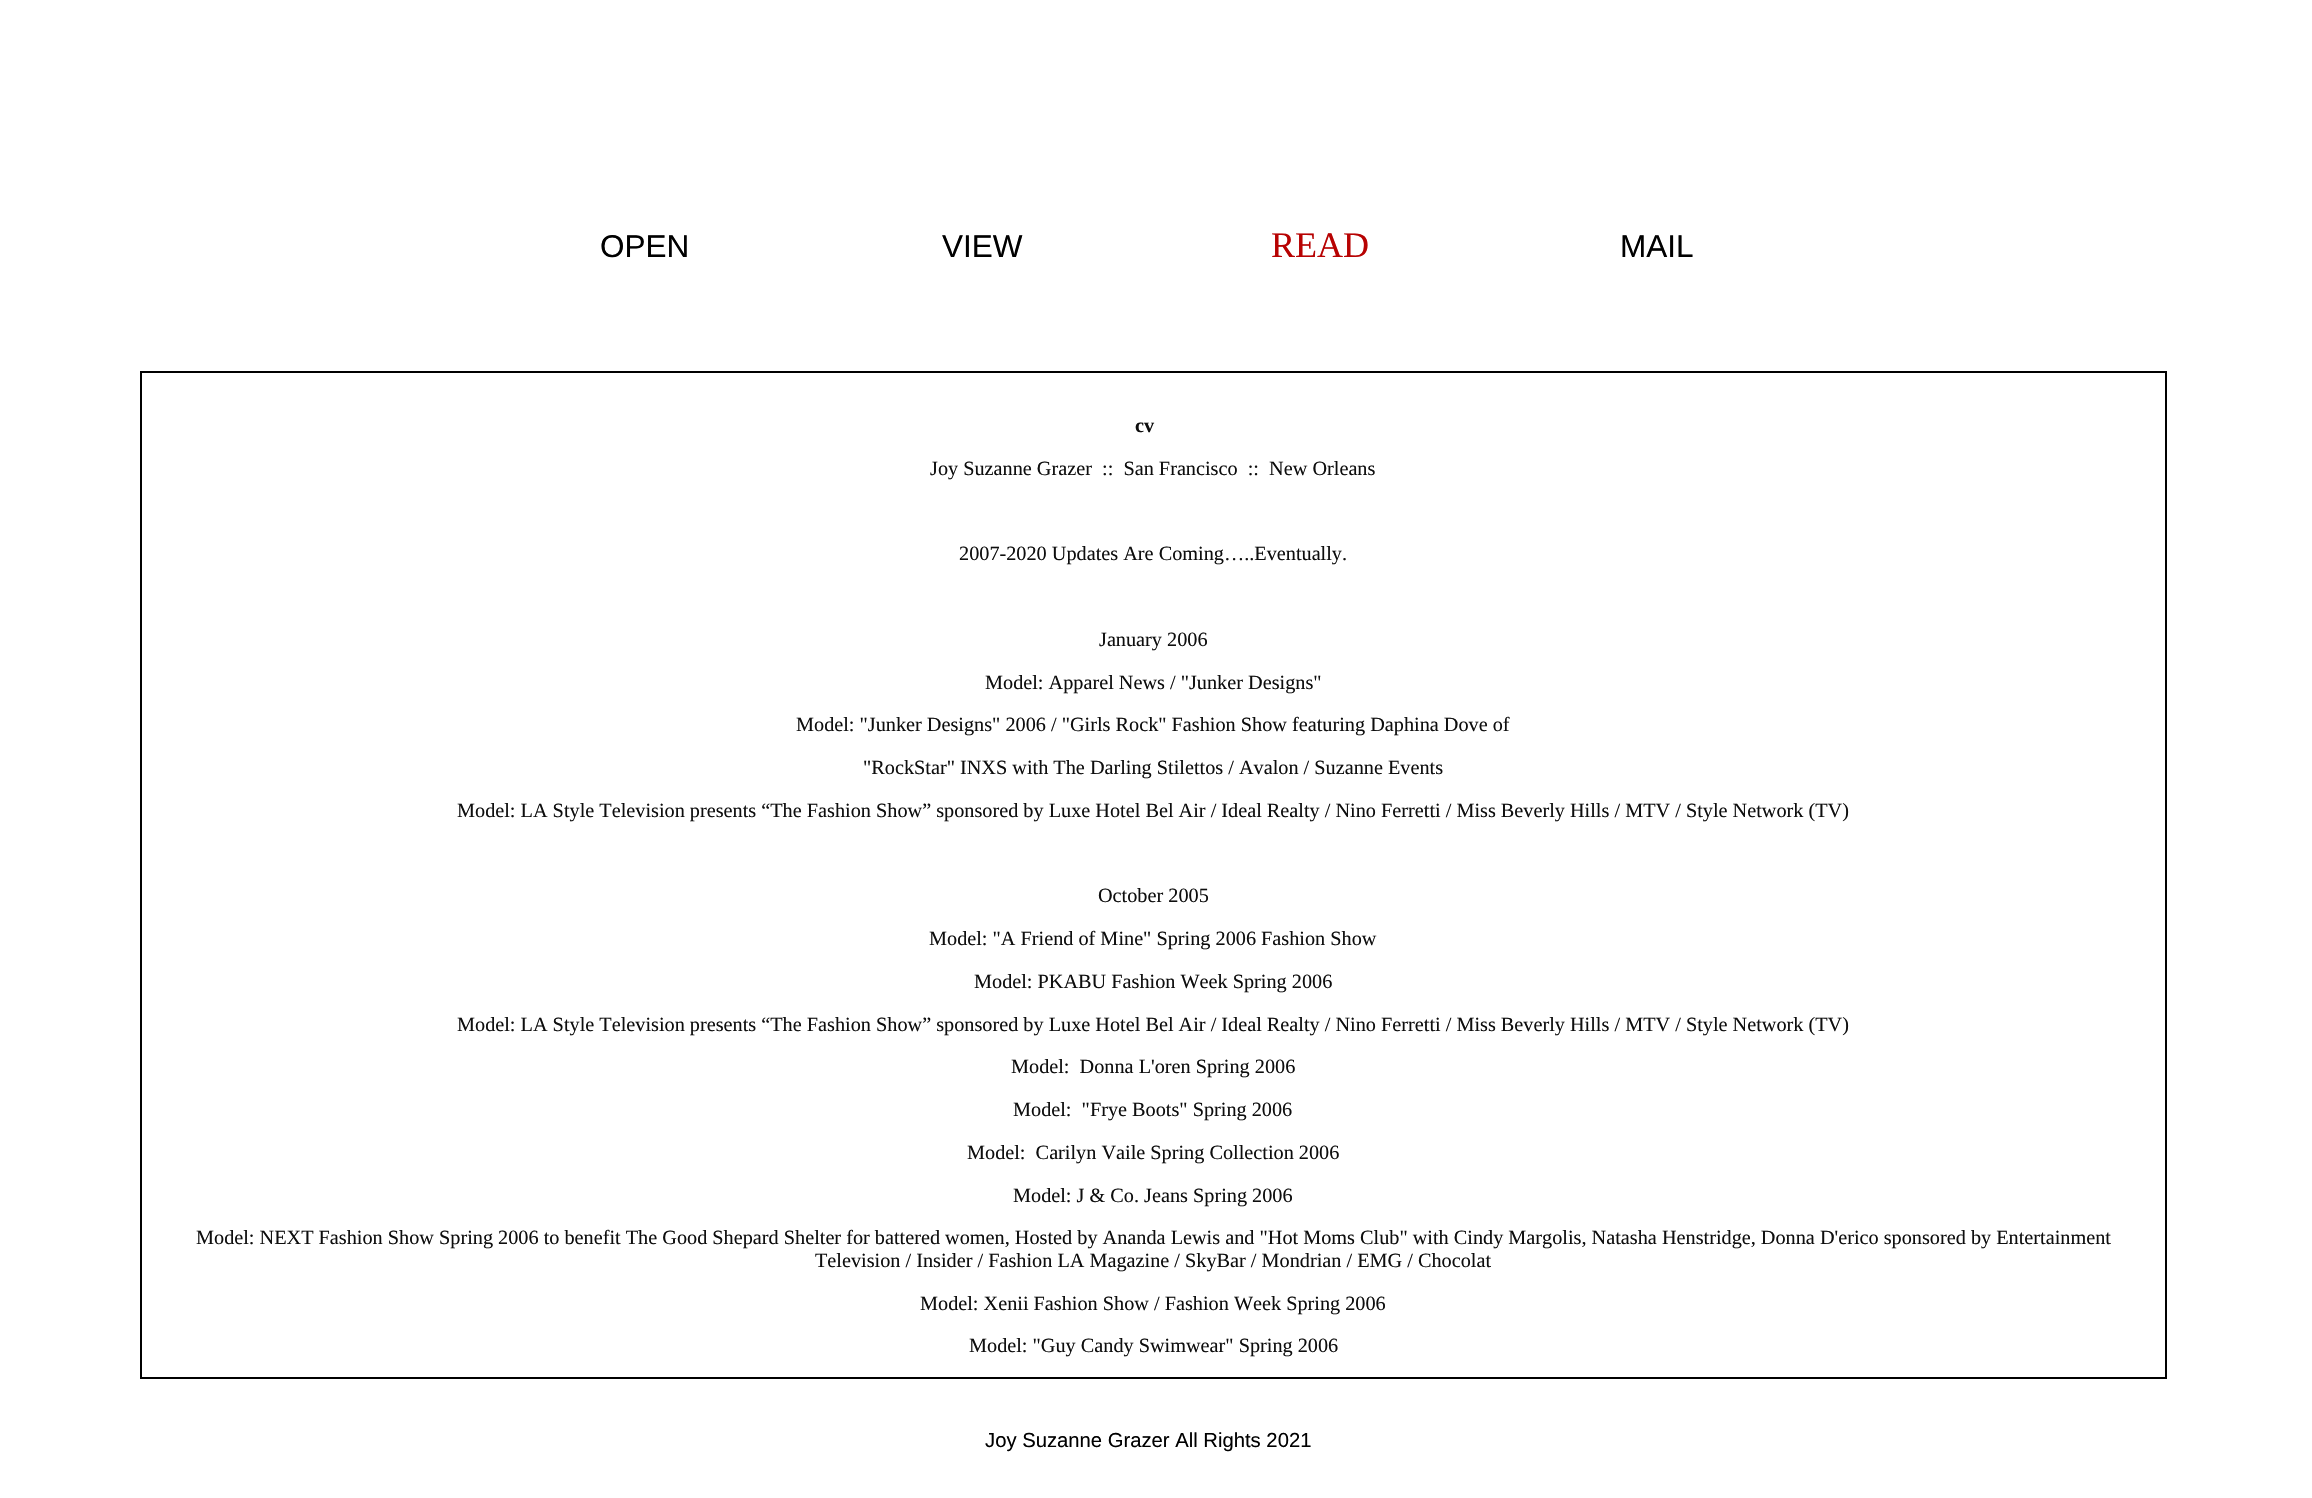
#include "include/core/SkBlurTypes.h"
#include "include/core/SkCanvas.h"
#include "include/core/SkData.h"
#include "include/core/SkFont.h"
#include "include/core/SkFontMgr.h"
#include "include/core/SkImage.h"
#include "include/core/SkMaskFilter.h"
#include "include/core/SkPaint.h"
#include "include/core/SkPathBuilder.h"
#include "include/core/SkTextBlob.h"
#include "include/effects/SkDashPathEffect.h"
#include "include/effects/SkGradientShader.h"
#include "include/utils/SkParsePath.h"

extern sk_sp<SkFontMgr> fontMgr;

void draw(SkCanvas* canvas) {
  SkPaint p;
  p.setAntiAlias(true);
  canvas->clear(SK_ColorWHITE);
  p.setStyle(SkPaint::kStroke_Style);
  p.setStrokeWidth(2);
  p.setColor(SK_ColorBLACK);
  canvas->drawRect(SkRect::MakeLTRB(141, 372, 2166, 1378), p);
  SkFont font1(fontMgr->matchFamilyStyle("Liberation Sans", SkFontStyle::Normal()), 31.5f);
  font1.setSubpixel(true);
  p.setStyle(SkPaint::kFill_Style);
  canvas->drawString("OPEN", 600, 257, font1, p);
  canvas->drawString("VIEW", 942, 257, font1, p);
  SkFont font2(fontMgr->matchFamilyStyle("Liberation Serif", SkFontStyle::Normal()), 36);
  font2.setSubpixel(true);
  p.setColor(SkColorSetRGB(183, 2, 2));
  canvas->drawString("READ", 1271, 257, font2, p);
  p.setColor(SK_ColorBLACK);
  canvas->drawString("MAIL", 1620, 257, font1, p);
  SkFont font3(fontMgr->matchFamilyStyle("Liberation Serif", SkFontStyle::Bold()), 20.25f);
  font3.setSubpixel(true);
  p.setColor(SkColorSetRGB(14, 14, 14));
  canvas->drawString("cv", 1135, 432, font3, p);
  SkFont font4(fontMgr->matchFamilyStyle("Liberation Serif", SkFontStyle::Normal()), 20.25f);
  font4.setSubpixel(true);
  canvas->drawString("Joy Suzanne Grazer  ::  San Francisco  ::  New Orleans", 930, 475, font4, p);
  canvas->drawString("2007-2020 Updates Are Coming…..Eventually.", 959, 560, font4, p);
  canvas->drawString("January 2006", 1099, 646, font4, p);
  canvas->drawString("Model: Apparel News / \"Junker Designs\"", 985, 689, font4, p);
  canvas->drawString("Model: \"Junker Designs\" 2006 / \"Girls Rock\" Fashion Show featuring Daphina Dove of", 796, 731, font4, p);
  canvas->drawString("\"RockStar\" INXS with The Darling Stilettos / Avalon / Suzanne Events", 863, 774, font4, p);
  canvas->drawString("Model: LA Style Television presents “The Fashion Show” sponsored by Luxe Hotel Bel Air / Ideal Realty / Nino Ferretti / Miss Beverly Hills / MTV / Style Network (TV)", 457, 817, font4, p);
  canvas->drawString("October 2005", 1098, 902, font4, p);
  canvas->drawString("Model: \"A Friend of Mine\" Spring 2006 Fashion Show", 929, 945, font4, p);
  canvas->drawString("Model: PKABU Fashion Week Spring 2006", 974, 988, font4, p);
  canvas->drawString("Model: LA Style Television presents “The Fashion Show” sponsored by Luxe Hotel Bel Air / Ideal Realty / Nino Ferretti / Miss Beverly Hills / MTV / Style Network (TV)", 457, 1031, font4, p);
  canvas->drawString("Model:  Donna L'oren Spring 2006", 1011, 1073, font4, p);
  canvas->drawString("Model:  \"Frye Boots\" Spring 2006", 1013, 1116, font4, p);
  canvas->drawString("Model:  Carilyn Vaile Spring Collection 2006", 967, 1159, font4, p);
  canvas->drawString("Model: J & Co. Jeans Spring 2006", 1013, 1202, font4, p);
  canvas->drawString("Model: NEXT Fashion Show Spring 2006 to benefit The Good Shepard Shelter for battered women, Hosted by Ananda Lewis and \"Hot Moms Club\" with Cindy Margolis, Natasha Henstridge, Donna D'erico sponsored by Entertainment", 196, 1244, font4, p);
  canvas->drawString("Television / Insider / Fashion LA Magazine / SkyBar / Mondrian / EMG / Chocolat", 815, 1267, font4, p);
  canvas->drawString("Model: Xenii Fashion Show / Fashion Week Spring 2006", 920, 1310, font4, p);
  canvas->drawString("Model: \"Guy Candy Swimwear\" Spring 2006", 969, 1352, font4, p);
  SkFont font5(fontMgr->matchFamilyStyle("Liberation Sans", SkFontStyle::Normal()), 20.25f);
  font5.setSubpixel(true);
  p.setColor(SK_ColorBLACK);
  canvas->drawString("Joy Suzanne Grazer All Rights 2021", 985, 1447, font5, p);
}
